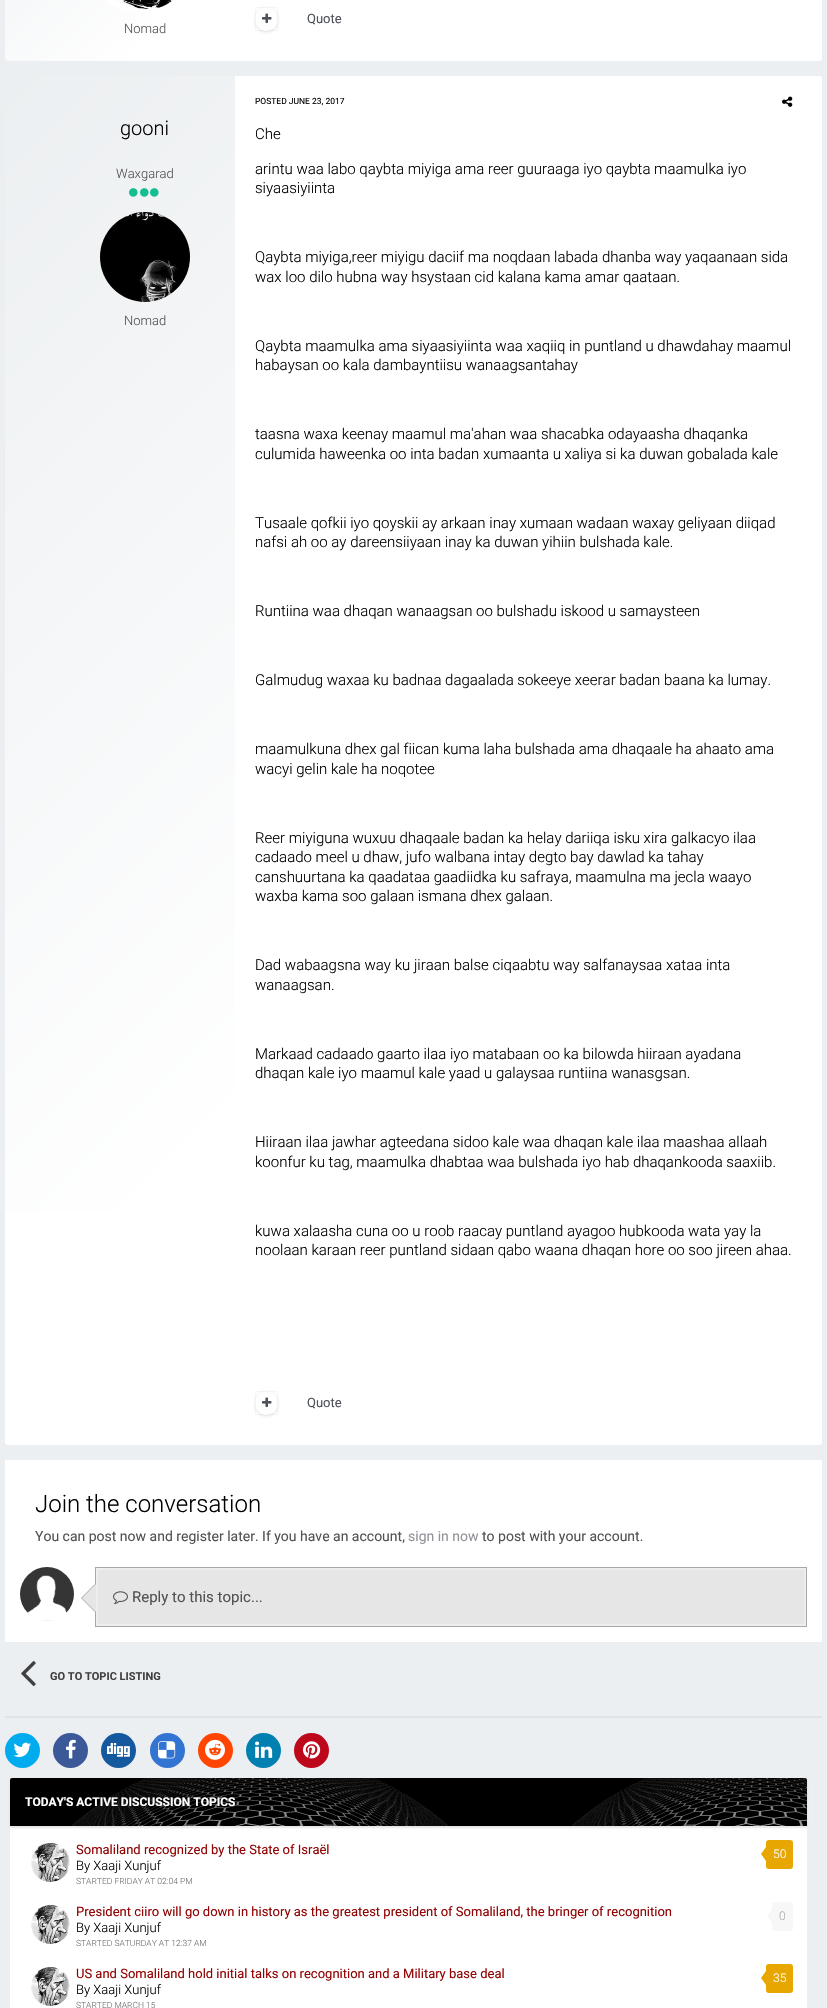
#include "include/core/SkBlurTypes.h"
#include "include/core/SkCanvas.h"
#include "include/core/SkData.h"
#include "include/core/SkFont.h"
#include "include/core/SkFontMgr.h"
#include "include/core/SkImage.h"
#include "include/core/SkMaskFilter.h"
#include "include/core/SkPaint.h"
#include "include/core/SkPathBuilder.h"
#include "include/core/SkTextBlob.h"
#include "include/effects/SkDashPathEffect.h"
#include "include/effects/SkGradientShader.h"
#include "include/utils/SkParsePath.h"

extern sk_sp<SkFontMgr> fontMgr;

void draw(SkCanvas* canvas) {
  SkPaint p;
  p.setAntiAlias(true);
  canvas->clear(SkColorSetRGB(236, 239, 241));
  p.setColor(SK_ColorWHITE);
  canvas->drawRoundRect(SkRect::MakeLTRB(5, -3, 822, 61), 3, 3, p);
  p.setColor(SkColorSetARGB(31, 0, 0, 0));
  p.setMaskFilter(SkMaskFilter::MakeBlur(kNormal_SkBlurStyle, 1.5f));
  canvas->drawRoundRect(SkRect::MakeLTRB(255, 8, 278, 32), 11.5f, 11.5f, p);
  p.setMaskFilter(nullptr);
  p.setColor(SkColorSetRGB(254, 254, 254));
  canvas->drawRoundRect(SkRect::MakeLTRB(255, 7, 278, 31), 11.5f, 11.5f, p);
  p.setStyle(SkPaint::kStroke_Style);
  p.setStrokeWidth(1);
  p.setColor(SkColorSetARGB(8, 0, 0, 0));
  canvas->drawRect(SkRect::MakeLTRB(255.5f, 7.5f, 277.5f, 30.5f), p);
  canvas->drawImageRect(SkImages::DeferredFromEncodedData(SkData::MakeFromFileName("images/1.png")), SkRect::MakeLTRB(262, 13, 272, 23), SkSamplingOptions());
  p.setStyle(SkPaint::kFill_Style);
  {
    const SkColor colors[] = {SkColorSetRGB(236, 239, 241), SkColorSetARGB(0, 236, 239, 241), SkColorSetARGB(0, 255, 255, 255)};
    const float stops[] = {0, 0.8f, 1};
    const SkPoint ends[] = {{-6.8f, -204}, {247, 49}};
    p.setShader(SkGradientShader::MakeLinear(ends, colors, stops, 3, SkTileMode::kClamp));
    p.setAlpha(255);
  }
  canvas->drawRect(SkRect::MakeLTRB(5, 0, 151, 61), p);
  p.setShader(nullptr);
  p.setColor(SK_ColorWHITE);
  canvas->drawRoundRect(SkRect::MakeLTRB(100, -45, 190, 10), 45, 45, p);
  canvas->drawImageRect(SkImages::DeferredFromEncodedData(SkData::MakeFromFileName("images/2.png")), SkRect::MakeLTRB(118, 0, 173, 10), SkSamplingOptions());
  canvas->drawRoundRect(SkRect::MakeLTRB(5, 76, 822, 1445), 3, 3, p);
  {
    const SkColor colors[] = {SkColorSetRGB(236, 239, 241), SkColorSetARGB(0, 236, 239, 241), SkColorSetARGB(0, 255, 255, 255)};
    const float stops[] = {0, 0.8f, 1};
    const SkPoint ends[] = {{-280, 361}, {520, 1160}};
    p.setShader(SkGradientShader::MakeLinear(ends, colors, stops, 3, SkTileMode::kClamp));
    p.setAlpha(255);
  }
  canvas->drawRect(SkRect::MakeLTRB(5, 76, 235, 1212), p);
  canvas->drawImageRect(SkImages::DeferredFromEncodedData(SkData::MakeFromFileName("images/3.png")), SkRect::MakeLTRB(129, 188, 138, 197), SkSamplingOptions());
  canvas->drawImageRect(SkImages::DeferredFromEncodedData(SkData::MakeFromFileName("images/4.png")), SkRect::MakeLTRB(140, 188, 149, 197), SkSamplingOptions());
  canvas->drawImageRect(SkImages::DeferredFromEncodedData(SkData::MakeFromFileName("images/5.png")), SkRect::MakeLTRB(150, 188, 159, 197), SkSamplingOptions());
  p.setShader(nullptr);
  p.setColor(SK_ColorWHITE);
  canvas->drawCircle(145, 257, 45, p);
  canvas->drawImageRect(SkImages::DeferredFromEncodedData(SkData::MakeFromFileName("images/6.png")), SkRect::MakeLTRB(100, 212, 190, 302), SkSamplingOptions());
  canvas->drawImageRect(SkImages::DeferredFromEncodedData(SkData::MakeFromFileName("images/7.png")), SkRect::MakeLTRB(782, 96, 793, 107), SkSamplingOptions());
  p.setColor(SkColorSetARGB(31, 0, 0, 0));
  p.setMaskFilter(SkMaskFilter::MakeBlur(kNormal_SkBlurStyle, 1.5f));
  canvas->drawRoundRect(SkRect::MakeLTRB(255, 1392, 278, 1416), 11.5f, 11.5f, p);
  p.setMaskFilter(nullptr);
  p.setColor(SkColorSetRGB(254, 254, 254));
  canvas->drawRoundRect(SkRect::MakeLTRB(255, 1391, 278, 1415), 11.5f, 11.5f, p);
  p.setStyle(SkPaint::kStroke_Style);
  p.setColor(SkColorSetARGB(8, 0, 0, 0));
  canvas->drawRect(SkRect::MakeLTRB(255.5f, 1391.5f, 277.5f, 1414.5f), p);
  canvas->drawImageRect(SkImages::DeferredFromEncodedData(SkData::MakeFromFileName("images/1.png")), SkRect::MakeLTRB(262, 1397, 272, 1407), SkSamplingOptions());
  p.setStyle(SkPaint::kFill_Style);
  p.setColor(SK_ColorWHITE);
  canvas->drawRect(SkRect::MakeLTRB(5, 1460, 822, 1642), p);
  canvas->drawImageRect(SkImages::DeferredFromEncodedData(SkData::MakeFromFileName("images/8.png")), SkRect::MakeLTRB(20, 1567, 74, 1621), SkSamplingOptions());
  p.setColor(SkColorSetRGB(238, 238, 238));
  canvas->drawRect(SkRect::MakeLTRB(95.5f, 1567.5f, 806.5f, 1626.5f), p);
  p.setStyle(SkPaint::kStroke_Style);
  p.setColor(SkColorSetRGB(168, 168, 168));
  canvas->drawRect(SkRect::MakeLTRB(95.5f, 1567.5f, 806.5f, 1626.5f), p);
  p.setStyle(SkPaint::kFill_Style);
  canvas->drawPath(SkPathBuilder().moveTo(96, 1583).lineTo(96, 1613).lineTo(81, 1598).close().detach(), p);
  p.setColor(SkColorSetRGB(230, 230, 230));
  canvas->drawPath(SkPathBuilder().moveTo(96, 1584).lineTo(96, 1612).lineTo(82, 1598).close().detach(), p);
  canvas->drawRect(SkRect::MakeLTRB(98, 1570, 804, 1624), p);
  canvas->drawImageRect(SkImages::DeferredFromEncodedData(SkData::MakeFromFileName("images/9.png")), SkRect::MakeLTRB(113, 1591, 128, 1605), SkSamplingOptions());
  canvas->drawImageRect(SkImages::DeferredFromEncodedData(SkData::MakeFromFileName("images/10.png")), SkRect::MakeLTRB(21, 1661, 36, 1686), SkSamplingOptions());
  p.setColor(SkColorSetRGB(224, 227, 229));
  canvas->drawRect(SkRect::MakeLTRB(5, 1716, 822, 1718), p);
  p.setColor(SkColorSetRGB(0, 172, 237));
  canvas->drawCircle(22.5f, 1750.5f, 17.5f, p);
  canvas->drawImageRect(SkImages::DeferredFromEncodedData(SkData::MakeFromFileName("images/11.png")), SkRect::MakeLTRB(13, 1742, 31, 1757), SkSamplingOptions());
  p.setColor(SkColorSetRGB(59, 89, 152));
  canvas->drawCircle(70.5f, 1750.5f, 17.5f, p);
  canvas->drawImageRect(SkImages::DeferredFromEncodedData(SkData::MakeFromFileName("images/12.png")), SkRect::MakeLTRB(66, 1739, 76, 1759), SkSamplingOptions());
  p.setColor(SkColorSetRGB(20, 88, 158));
  canvas->drawCircle(118.5f, 1750.5f, 17.5f, p);
  canvas->drawImageRect(SkImages::DeferredFromEncodedData(SkData::MakeFromFileName("images/13.png")), SkRect::MakeLTRB(107, 1743, 130, 1757), SkSamplingOptions());
  p.setColor(SkColorSetRGB(50, 116, 209));
  canvas->drawCircle(167.5f, 1750.5f, 17.5f, p);
  canvas->drawImageRect(SkImages::DeferredFromEncodedData(SkData::MakeFromFileName("images/14.png")), SkRect::MakeLTRB(158, 1741, 176, 1759), SkSamplingOptions());
  p.setColor(SkColorSetRGB(255, 69, 0));
  canvas->drawCircle(215.5f, 1750.5f, 17.5f, p);
  canvas->drawImageRect(SkImages::DeferredFromEncodedData(SkData::MakeFromFileName("images/15.png")), SkRect::MakeLTRB(205, 1739, 225, 1760), SkSamplingOptions());
  p.setColor(SkColorSetRGB(0, 127, 177));
  canvas->drawCircle(263.5f, 1750.5f, 17.5f, p);
  canvas->drawImageRect(SkImages::DeferredFromEncodedData(SkData::MakeFromFileName("images/16.png")), SkRect::MakeLTRB(255, 1741, 273, 1758), SkSamplingOptions());
  p.setColor(SkColorSetRGB(189, 8, 28));
  canvas->drawCircle(311.5f, 1750.5f, 17.5f, p);
  canvas->drawImageRect(SkImages::DeferredFromEncodedData(SkData::MakeFromFileName("images/17.png")), SkRect::MakeLTRB(303, 1741, 321, 1759), SkSamplingOptions());
  p.setColor(SK_ColorWHITE);
  canvas->drawRoundRect(SkRect::MakeLTRB(10, 1778, 807, 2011), 3, 3, p);
  p.setColor(SkColorSetARGB(26, 0, 0, 0));
  p.setMaskFilter(SkMaskFilter::MakeBlur(kNormal_SkBlurStyle, 1));
  canvas->drawRoundRect(SkRect::MakeLTRB(10, 1780, 807, 1828), 2, 2, p);
  p.setMaskFilter(nullptr);
  canvas->drawImageRect(SkImages::DeferredFromEncodedData(SkData::MakeFromFileName("images/18.png")), SkRect::MakeLTRB(10, 1778, 807, 1826), SkSamplingOptions());
  canvas->drawImageRect(SkImages::DeferredFromEncodedData(SkData::MakeFromFileName("images/19.png")), SkRect::MakeLTRB(31, 1843, 70, 1882), SkSamplingOptions());
  p.setColor(SkColorSetRGB(232, 167, 0));
  canvas->drawRoundRect(SkRect::MakeLTRB(766, 1840, 793, 1869), 3, 3, p);
  canvas->drawPath(SkPathBuilder().moveTo(766, 1847).lineTo(766, 1861).lineTo(761, 1854).close().detach(), p);
  canvas->drawImageRect(SkImages::DeferredFromEncodedData(SkData::MakeFromFileName("images/20.png")), SkRect::MakeLTRB(31, 1905, 70, 1944), SkSamplingOptions());
  p.setColor(SkColorSetRGB(247, 247, 247));
  canvas->drawRoundRect(SkRect::MakeLTRB(772, 1902, 793, 1931), 3, 3, p);
  canvas->drawPath(SkPathBuilder().moveTo(772, 1909).lineTo(772, 1923).lineTo(767, 1916).close().detach(), p);
  canvas->drawImageRect(SkImages::DeferredFromEncodedData(SkData::MakeFromFileName("images/19.png")), SkRect::MakeLTRB(31, 1967, 70, 2006), SkSamplingOptions());
  p.setColor(SkColorSetRGB(232, 167, 0));
  canvas->drawRoundRect(SkRect::MakeLTRB(766, 1964, 793, 1993), 3, 3, p);
  canvas->drawPath(SkPathBuilder().moveTo(766, 1971).lineTo(766, 1985).lineTo(761, 1978).close().detach(), p);
  SkFont font1(fontMgr->matchFamilyStyle("Roboto", SkFontStyle::Normal()), 13);
  font1.setSubpixel(true);
  p.setColor(SkColorSetRGB(78, 81, 91));
  canvas->drawString("Quote", 307, 23, font1, p);
  SkFont font2(fontMgr->matchFamilyStyle("Roboto", SkFontStyle(300, SkFontStyle::kNormal_Width, SkFontStyle::kUpright_Slant)), 13);
  font2.setSubpixel(true);
  p.setColor(SkColorSetRGB(82, 82, 82));
  canvas->drawString("Nomad", 124, 33, font2, p);
  SkFont font3(fontMgr->matchFamilyStyle("Roboto", SkFontStyle(300, SkFontStyle::kNormal_Width, SkFontStyle::kUpright_Slant)), 20);
  font3.setSubpixel(true);
  p.setColor(SK_ColorBLACK);
  canvas->drawString("gooni", 120, 135, font3, p);
  p.setColor(SkColorSetRGB(82, 82, 82));
  canvas->drawString("Waxgarad", 116, 178, font2, p);
  canvas->drawString("Nomad", 124, 325, font2, p);
  SkFont font4(fontMgr->matchFamilyStyle("Roboto", SkFontStyle::Normal()), 8.5f);
  font4.setSubpixel(true);
  p.setColor(SK_ColorBLACK);
  canvas->drawString("POSTED JUNE 23, 2017", 255, 104, font4, p);
  SkFont font5(fontMgr->matchFamilyStyle("Roboto", SkFontStyle(300, SkFontStyle::kNormal_Width, SkFontStyle::kUpright_Slant)), 15);
  font5.setSubpixel(true);
  canvas->drawString("Che", 255, 139, font5, p);
  canvas->drawString("arintu waa labo qaybta miyiga ama reer guuraaga iyo qaybta maamulka iyo", 255, 174, font5, p);
  canvas->drawString("siyaasiyiinta", 255, 193, font5, p);
  canvas->drawString("Qaybta miyiga,reer miyigu daciif ma noqdaan labada dhanba way yaqaanaan sida", 255, 262, font5, p);
  canvas->drawString("wax loo dilo hubna way hsystaan cid kalana kama amar qaataan.", 255, 282, font5, p);
  canvas->drawString("Qaybta maamulka ama siyaasiyiinta waa xaqiiq in puntland u dhawdahay maamul", 255, 351, font5, p);
  canvas->drawString("habaysan oo kala dambayntiisu wanaagsantahay", 255, 370, font5, p);
  canvas->drawString("taasna waxa keenay maamul ma'ahan waa shacabka odayaasha dhaqanka", 255, 439, font5, p);
  canvas->drawString("culumida haweenka oo inta badan xumaanta u xaliya si ka duwan gobalada kale", 255, 459, font5, p);
  canvas->drawString("Tusaale qofkii iyo qoyskii ay arkaan inay xumaan wadaan waxay geliyaan diiqad", 255, 528, font5, p);
  canvas->drawString("nafsi ah oo ay dareensiiyaan inay ka duwan yihiin bulshada kale.", 255, 547, font5, p);
  canvas->drawString("Runtiina waa dhaqan wanaagsan oo bulshadu iskood u samaysteen", 255, 616, font5, p);
  canvas->drawString("Galmudug waxaa ku badnaa dagaalada sokeeye xeerar badan baana ka lumay.", 255, 685, font5, p);
  canvas->drawString("maamulkuna dhex gal fiican kuma laha bulshada ama dhaqaale ha ahaato ama", 255, 754, font5, p);
  canvas->drawString("wacyi gelin kale ha noqotee", 255, 774, font5, p);
  canvas->drawString("Reer miyiguna wuxuu dhaqaale badan ka helay dariiqa isku xira galkacyo ilaa", 255, 843, font5, p);
  canvas->drawString("cadaado meel u dhaw, jufo walbana intay degto bay dawlad ka tahay", 255, 862, font5, p);
  canvas->drawString("canshuurtana ka qaadataa gaadiidka ku safraya, maamulna ma jecla waayo", 255, 882, font5, p);
  canvas->drawString("waxba kama soo galaan ismana dhex galaan.", 255, 901, font5, p);
  canvas->drawString("Dad wabaagsna way ku jiraan balse ciqaabtu way salfanaysaa xataa inta", 255, 970, font5, p);
  canvas->drawString("wanaagsan.", 255, 990, font5, p);
  canvas->drawString("Markaad cadaado gaarto ilaa iyo matabaan oo ka bilowda hiiraan ayadana", 255, 1059, font5, p);
  canvas->drawString("dhaqan kale iyo maamul kale yaad u galaysaa runtiina wanasgsan.", 255, 1078, font5, p);
  canvas->drawString("Hiiraan ilaa jawhar agteedana sidoo kale waa dhaqan kale ilaa maashaa allaah", 255, 1147, font5, p);
  canvas->drawString("koonfur ku tag, maamulka dhabtaa waa bulshada iyo hab dhaqankooda saaxiib.", 255, 1167, font5, p);
  canvas->drawString("kuwa xalaasha cuna oo u roob raacay puntland ayagoo hubkooda wata yay la", 255, 1236, font5, p);
  canvas->drawString("noolaan karaan reer puntland sidaan qabo waana dhaqan hore oo soo jireen ahaa.", 255, 1255, font5, p);
  p.setColor(SkColorSetRGB(78, 81, 91));
  canvas->drawString("Quote", 307, 1407, font1, p);
  SkFont font6(fontMgr->matchFamilyStyle("Roboto", SkFontStyle(300, SkFontStyle::kNormal_Width, SkFontStyle::kUpright_Slant)), 24);
  font6.setSubpixel(true);
  p.setColor(SK_ColorBLACK);
  canvas->drawString("Join the conversation", 35, 1512, font6, p);
  SkFont font7(fontMgr->matchFamilyStyle("Roboto", SkFontStyle::Normal()), 14);
  font7.setSubpixel(true);
  p.setColor(SkColorSetRGB(82, 82, 82));
  canvas->drawString("You can post now and register later. If you have an account,", 35, 1541, font7, p);
  p.setColor(SkColorSetRGB(145, 147, 153));
  canvas->drawString("sign in now", 408, 1541, font7, p);
  p.setColor(SkColorSetRGB(82, 82, 82));
  canvas->drawString("to post with your account.", 482, 1541, font7, p);
  SkFont font8(fontMgr->matchFamilyStyle("Roboto", SkFontStyle::Normal()), 15);
  font8.setSubpixel(true);
  canvas->drawString("Reply to this topic...", 132, 1602, font8, p);
  SkFont font9(fontMgr->matchFamilyStyle("Roboto", SkFontStyle::Bold()), 11);
  font9.setSubpixel(true);
  p.setColor(SkColorSetRGB(64, 64, 64));
  canvas->drawString("GO TO TOPIC LISTING", 50, 1680, font9, p);
  SkFont font10(fontMgr->matchFamilyStyle("Roboto", SkFontStyle::Bold()), 12);
  font10.setSubpixel(true);
  p.setColor(SK_ColorWHITE);
  canvas->drawString("TODAY'S ACTIVE DISCUSSION TOPICS", 25, 1806, font10, p);
  p.setColor(SkColorSetRGB(145, 3, 3));
  canvas->drawString("Somaliland recognized by the State of Israël", 76, 1854, font1, p);
  SkFont font11(fontMgr->matchFamilyStyle("Roboto", SkFontStyle(300, SkFontStyle::kNormal_Width, SkFontStyle::kUpright_Slant)), 12);
  font11.setSubpixel(true);
  p.setColor(SK_ColorWHITE);
  canvas->drawString("50", 773, 1858, font11, p);
  p.setColor(SK_ColorBLACK);
  canvas->drawString("By Xaaji Xunjuf", 76, 1870, font2, p);
  SkFont font12(fontMgr->matchFamilyStyle("Roboto", SkFontStyle(300, SkFontStyle::kNormal_Width, SkFontStyle::kUpright_Slant)), 8.5f);
  font12.setSubpixel(true);
  p.setColor(SkColorSetRGB(115, 115, 115));
  canvas->drawString("STARTED FRIDAY AT 02:04 PM", 76, 1884, font12, p);
  p.setColor(SkColorSetRGB(145, 3, 3));
  canvas->drawString("President ciiro will go down in history as the greatest president of Somaliland, the bringer of recognition", 76, 1916, font1, p);
  p.setColor(SkColorSetRGB(173, 173, 173));
  canvas->drawString("0", 779, 1920, font11, p);
  p.setColor(SK_ColorBLACK);
  canvas->drawString("By Xaaji Xunjuf", 76, 1932, font2, p);
  p.setColor(SkColorSetRGB(115, 115, 115));
  canvas->drawString("STARTED SATURDAY AT 12:37 AM", 76, 1946, font12, p);
  p.setColor(SkColorSetRGB(145, 3, 3));
  canvas->drawString("US and Somaliland hold initial talks on recognition and a Military base deal", 76, 1978, font1, p);
  p.setColor(SK_ColorWHITE);
  canvas->drawString("35", 773, 1982, font11, p);
  p.setColor(SK_ColorBLACK);
  canvas->drawString("By Xaaji Xunjuf", 76, 1994, font2, p);
  p.setColor(SkColorSetRGB(115, 115, 115));
  canvas->drawString("STARTED MARCH 15", 76, 2008, font12, p);
}
